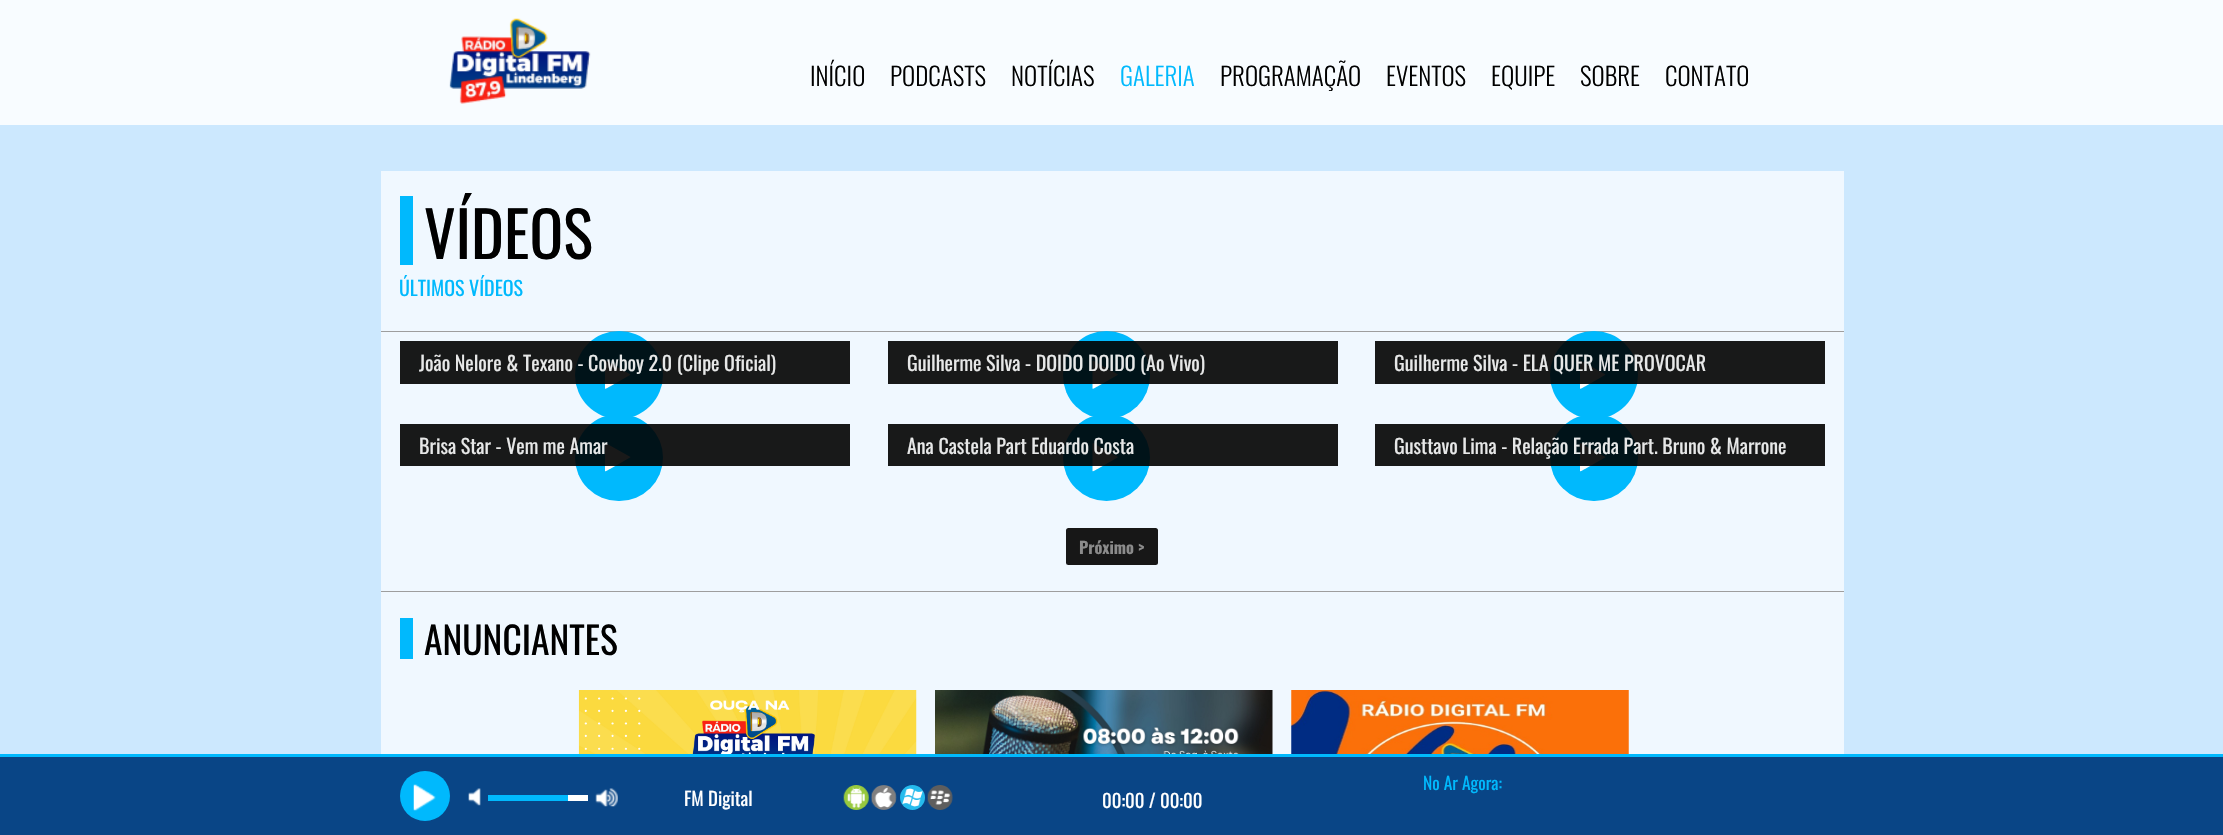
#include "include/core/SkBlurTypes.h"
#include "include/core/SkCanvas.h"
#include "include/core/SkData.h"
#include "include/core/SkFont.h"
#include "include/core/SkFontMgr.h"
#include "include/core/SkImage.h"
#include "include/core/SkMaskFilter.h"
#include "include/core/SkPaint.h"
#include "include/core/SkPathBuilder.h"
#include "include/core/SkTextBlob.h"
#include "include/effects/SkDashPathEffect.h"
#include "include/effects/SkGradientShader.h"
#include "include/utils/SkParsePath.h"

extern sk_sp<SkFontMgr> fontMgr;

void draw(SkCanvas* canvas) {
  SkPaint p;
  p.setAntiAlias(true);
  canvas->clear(SkColorSetRGB(204, 232, 254));
  p.setColor(SkColorSetRGB(248, 252, 255));
  canvas->drawRect(SkRect::MakeLTRB(0, 0, 2223, 125), p);
  canvas->drawImageRect(SkImages::DeferredFromEncodedData(SkData::MakeFromFileName("images/1.png")), SkRect::MakeLTRB(449, 18, 591, 104), SkSamplingOptions());
  p.setColor(SkColorSetRGB(240, 248, 255));
  canvas->drawRect(SkRect::MakeLTRB(381, 171, 1844, 754), p);
  p.setColor(SkColorSetRGB(158, 158, 158));
  canvas->drawRect(SkRect::MakeLTRB(381, 331, 1844, 332), p);
  p.setColor(SkColorSetRGB(0, 185, 253));
  canvas->drawRect(SkRect::MakeLTRB(400, 196, 413, 265), p);
  p.setColor(SkColorSetRGB(158, 158, 158));
  canvas->drawRect(SkRect::MakeLTRB(381, 591, 1844, 592), p);
  p.setColor(SkColorSetRGB(0, 185, 253));
  canvas->drawCircle(619, 375, 44, p);
  p.setColor(SK_ColorWHITE);
  canvas->drawPath(SkPathBuilder().moveTo(630, 375).lineTo(610, 386.5f).cubicTo(609.5f, 386.5f, 606, 389.5f, 605, 388.5f).lineTo(605, 361).lineTo(605.5f, 360.5f).lineTo(626, 372).lineTo(630.5f, 374.5f).close().detach(), p);
  p.setColor(SkColorSetARGB(230, 0, 0, 0));
  canvas->drawRect(SkRect::MakeLTRB(400, 341, 850, 384), p);
  p.setColor(SkColorSetRGB(0, 185, 253));
  canvas->drawRoundRect(SkRect::MakeLTRB(1063, 331, 1150, 419), 43.5f, 43.5f, p);
  p.setColor(SK_ColorWHITE);
  canvas->drawPath(SkPathBuilder().moveTo(1117.5f, 375).lineTo(1097.5f, 386.5f).cubicTo(1097, 386.5f, 1093.5f, 389.5f, 1092.5f, 388.5f).lineTo(1092.5f, 361).lineTo(1093, 360.5f).lineTo(1113.5f, 372).lineTo(1118, 374.5f).close().detach(), p);
  p.setColor(SkColorSetARGB(230, 0, 0, 0));
  canvas->drawRect(SkRect::MakeLTRB(888, 341, 1338, 384), p);
  p.setColor(SkColorSetRGB(0, 185, 253));
  canvas->drawCircle(1594, 375, 44, p);
  p.setColor(SK_ColorWHITE);
  canvas->drawPath(SkPathBuilder().moveTo(1605, 375).lineTo(1585, 386.5f).cubicTo(1584.5f, 386.5f, 1581, 389.5f, 1580, 388.5f).lineTo(1580, 361).lineTo(1580.5f, 360.5f).lineTo(1601, 372).lineTo(1605.5f, 374.5f).close().detach(), p);
  p.setColor(SkColorSetARGB(230, 0, 0, 0));
  canvas->drawRect(SkRect::MakeLTRB(1375, 341, 1825, 384), p);
  p.setColor(SkColorSetRGB(0, 185, 253));
  canvas->drawRoundRect(SkRect::MakeLTRB(575, 414, 663, 501), 43.5f, 43.5f, p);
  p.setColor(SK_ColorWHITE);
  canvas->drawPath(SkPathBuilder().moveTo(630, 457.5f).lineTo(610, 469).cubicTo(609.5f, 469, 606, 472, 605, 471).lineTo(605, 443.5f).lineTo(605.5f, 443).lineTo(626, 454.5f).lineTo(630.5f, 457).close().detach(), p);
  p.setColor(SkColorSetARGB(230, 0, 0, 0));
  canvas->drawRect(SkRect::MakeLTRB(400, 424, 850, 466), p);
  p.setColor(SkColorSetRGB(0, 185, 253));
  canvas->drawCircle(1106.5f, 457.5f, 43.5f, p);
  p.setColor(SK_ColorWHITE);
  canvas->drawPath(SkPathBuilder().moveTo(1117.5f, 457.5f).lineTo(1097.5f, 469).cubicTo(1097, 469, 1093.5f, 472, 1092.5f, 471).lineTo(1092.5f, 443.5f).lineTo(1093, 443).lineTo(1113.5f, 454.5f).lineTo(1118, 457).close().detach(), p);
  p.setColor(SkColorSetARGB(230, 0, 0, 0));
  canvas->drawRect(SkRect::MakeLTRB(888, 424, 1338, 466), p);
  p.setColor(SkColorSetRGB(0, 185, 253));
  canvas->drawRoundRect(SkRect::MakeLTRB(1550, 414, 1638, 501), 43.5f, 43.5f, p);
  p.setColor(SK_ColorWHITE);
  canvas->drawPath(SkPathBuilder().moveTo(1605, 457.5f).lineTo(1585, 469).cubicTo(1584.5f, 469, 1581, 472, 1580, 471).lineTo(1580, 443.5f).lineTo(1580.5f, 443).lineTo(1601, 454.5f).lineTo(1605.5f, 457).close().detach(), p);
  p.setColor(SkColorSetARGB(230, 0, 0, 0));
  canvas->drawRect(SkRect::MakeLTRB(1375, 424, 1825, 466), p);
  p.setColor(SkColorSetRGB(23, 23, 23));
  canvas->drawRoundRect(SkRect::MakeLTRB(1066, 528, 1158, 565), 2.5f, 2.5f, p);
  p.setColor(SkColorSetRGB(0, 185, 253));
  canvas->drawRect(SkRect::MakeLTRB(400, 618, 413, 659), p);
  canvas->drawImageRect(SkImages::DeferredFromEncodedData(SkData::MakeFromFileName("images/2.png")), SkRect::MakeLTRB(578, 690, 917, 754), SkSamplingOptions());
  canvas->drawImageRect(SkImages::DeferredFromEncodedData(SkData::MakeFromFileName("images/3.png")), SkRect::MakeLTRB(935, 690, 1273, 754), SkSamplingOptions());
  canvas->drawImageRect(SkImages::DeferredFromEncodedData(SkData::MakeFromFileName("images/4.png")), SkRect::MakeLTRB(1291, 690, 1629, 754), SkSamplingOptions());
  p.setColor(SkColorSetRGB(9, 69, 134));
  canvas->drawRect(SkRect::MakeLTRB(0, 757, 2223, 835), p);
  p.setColor(SkColorSetRGB(0, 185, 253));
  canvas->drawRect(SkRect::MakeLTRB(0, 754, 2223, 757), p);
  canvas->drawCircle(425, 796, 25, p);
  canvas->drawImageRect(SkImages::DeferredFromEncodedData(SkData::MakeFromFileName("images/5.png")), SkRect::MakeLTRB(413, 784, 436, 811), SkSamplingOptions());
  canvas->drawImageRect(SkImages::DeferredFromEncodedData(SkData::MakeFromFileName("images/6.png")), SkRect::MakeLTRB(468, 788, 481, 806), SkSamplingOptions());
  p.setColor(SK_ColorWHITE);
  canvas->drawRect(SkRect::MakeLTRB(568, 795, 588, 801), p);
  p.setColor(SkColorSetRGB(0, 185, 253));
  canvas->drawRect(SkRect::MakeLTRB(488, 795, 568, 801), p);
  canvas->drawImageRect(SkImages::DeferredFromEncodedData(SkData::MakeFromFileName("images/7.png")), SkRect::MakeLTRB(595, 788, 618, 807), SkSamplingOptions());
  canvas->drawImageRect(SkImages::DeferredFromEncodedData(SkData::MakeFromFileName("images/8.png")), SkRect::MakeLTRB(843, 785, 869, 810), SkSamplingOptions());
  canvas->drawImageRect(SkImages::DeferredFromEncodedData(SkData::MakeFromFileName("images/9.png")), SkRect::MakeLTRB(870, 785, 897, 810), SkSamplingOptions());
  canvas->drawImageRect(SkImages::DeferredFromEncodedData(SkData::MakeFromFileName("images/10.png")), SkRect::MakeLTRB(900, 785, 925, 810), SkSamplingOptions());
  canvas->drawImageRect(SkImages::DeferredFromEncodedData(SkData::MakeFromFileName("images/11.png")), SkRect::MakeLTRB(927, 785, 953, 810), SkSamplingOptions());
  SkFont font1(fontMgr->matchFamilyStyle("Oswald", SkFontStyle(300, SkFontStyle::kNormal_Width, SkFontStyle::kUpright_Slant)), 25);
  font1.setSubpixel(true);
  p.setColor(SK_ColorBLACK);
  canvas->drawString("INÍCIO", 810, 86, font1, p);
  canvas->drawString("PODCASTS", 890, 86, font1, p);
  canvas->drawString("NOTÍCIAS", 1011, 86, font1, p);
  p.setColor(SkColorSetRGB(0, 185, 253));
  canvas->drawString("GALERIA", 1120, 86, font1, p);
  p.setColor(SK_ColorBLACK);
  canvas->drawString("PROGRAMAÇÃO", 1220, 86, font1, p);
  canvas->drawString("EVENTOS", 1386, 86, font1, p);
  canvas->drawString("EQUIPE", 1491, 86, font1, p);
  canvas->drawString("SOBRE", 1580, 86, font1, p);
  canvas->drawString("CONTATO", 1665, 86, font1, p);
  SkFont font2(fontMgr->matchFamilyStyle("Oswald", SkFontStyle::Normal()), 62.5f);
  font2.setSubpixel(true);
  canvas->drawString("VÍDEOS", 424, 259, font2, p);
  SkFont font3(fontMgr->matchFamilyStyle("Oswald", SkFontStyle::Normal()), 20);
  font3.setSubpixel(true);
  p.setColor(SkColorSetRGB(0, 185, 253));
  canvas->drawString("ÚLTIMOS VÍDEOS", 399, 296, font3, p);
  p.setColor(SkColorSetRGB(231, 232, 232));
  canvas->drawString("João Nelore & Texano - Cowboy 2.0 (Clipe Oficial)", 419, 371, font3, p);
  canvas->drawString("Guilherme Silva - DOIDO DOIDO (Ao Vivo)", 907, 371, font3, p);
  canvas->drawString("Guilherme Silva - ELA QUER ME PROVOCAR", 1394, 371, font3, p);
  canvas->drawString("Brisa Star - Vem me Amar", 419, 454, font3, p);
  canvas->drawString("Ana Castela Part Eduardo Costa", 907, 454, font3, p);
  canvas->drawString("Gusttavo Lima - Relação Errada Part. Bruno & Marrone", 1394, 454, font3, p);
  SkFont font4(fontMgr->matchFamilyStyle("Oswald", SkFontStyle::Bold()), 16.25f);
  font4.setSubpixel(true);
  p.setColor(SkColorSetRGB(139, 139, 139));
  canvas->drawString("Próximo >", 1079, 554, font4, p);
  SkFont font5(fontMgr->matchFamilyStyle("Oswald", SkFontStyle::Normal()), 37.5f);
  font5.setSubpixel(true);
  p.setColor(SK_ColorBLACK);
  canvas->drawString("ANUNCIANTES", 424, 655, font5, p);
  SkFont font6(fontMgr->matchFamilyStyle("Oswald", SkFontStyle::Normal()), 17.5f);
  font6.setSubpixel(true);
  p.setColor(SkColorSetRGB(0, 185, 253));
  canvas->drawString("No Ar Agora:", 1423, 790, font6, p);
  SkFont font7(fontMgr->matchFamilyStyle("Oswald", SkFontStyle::Normal()), 18.75f);
  font7.setSubpixel(true);
  p.setColor(SK_ColorWHITE);
  canvas->drawString("FM Digital", 684, 806, font7, p);
  canvas->drawString("00:00 / 00:00", 1102, 808, font7, p);
}
